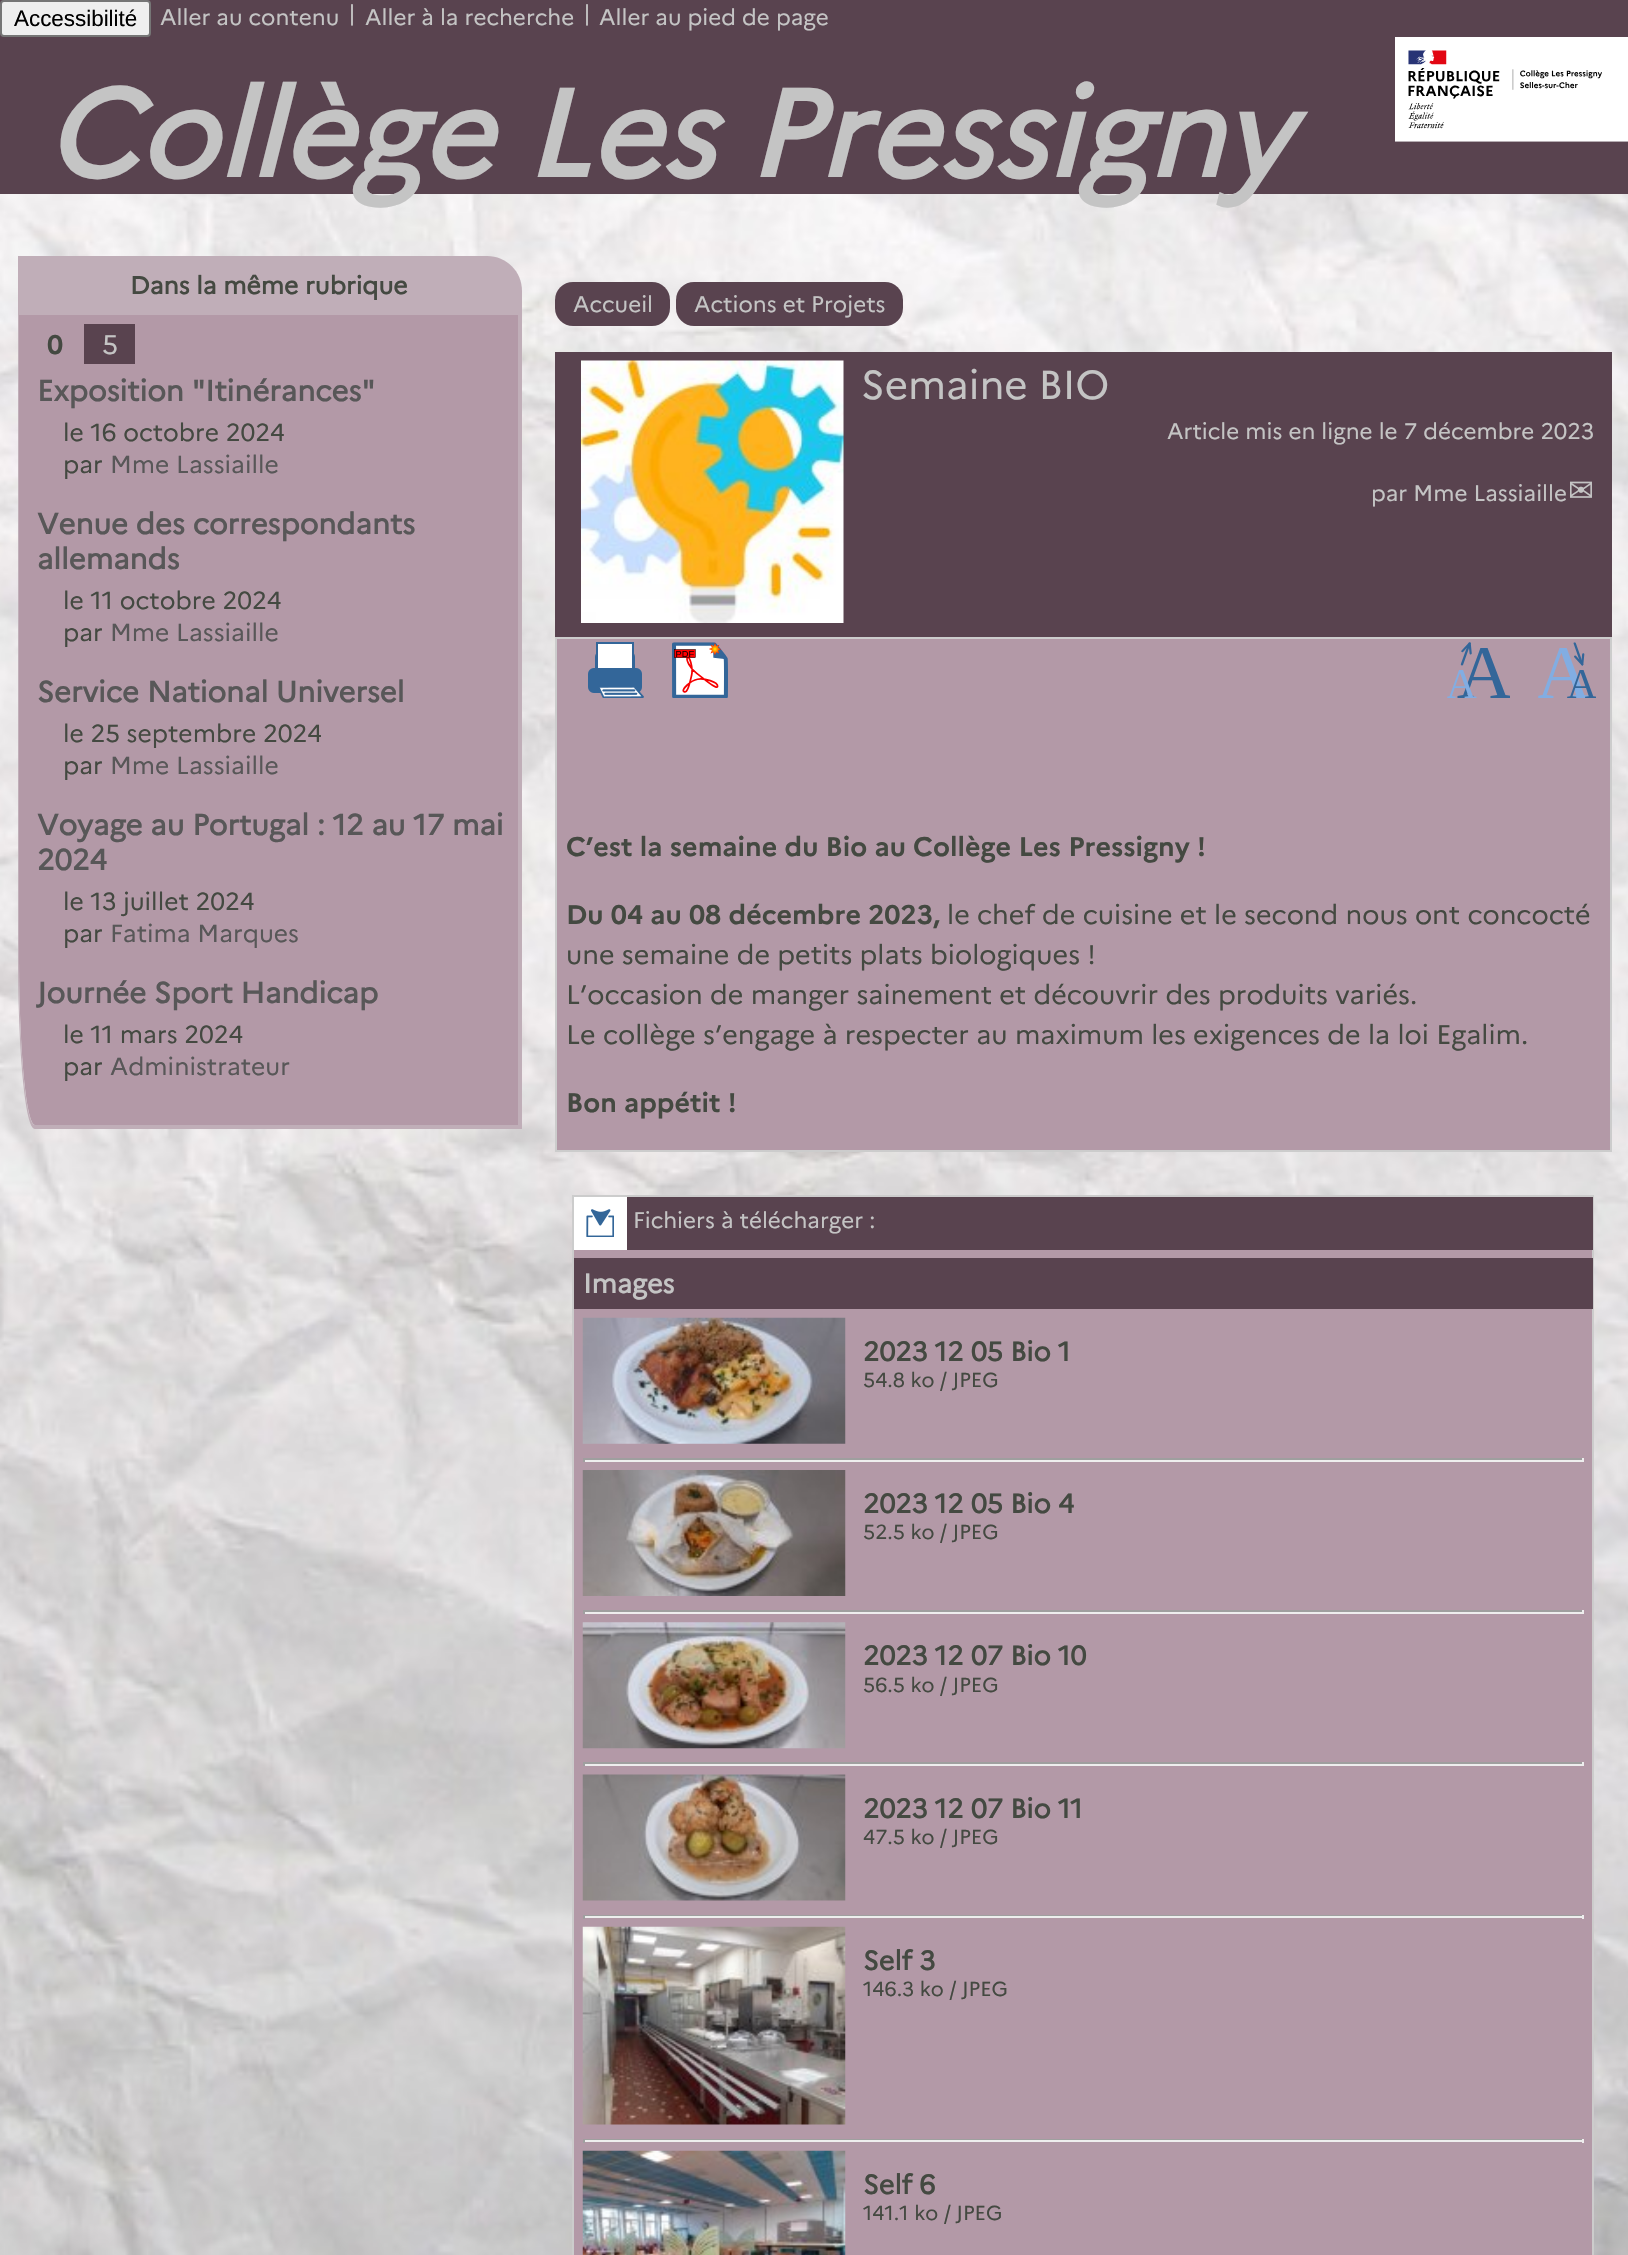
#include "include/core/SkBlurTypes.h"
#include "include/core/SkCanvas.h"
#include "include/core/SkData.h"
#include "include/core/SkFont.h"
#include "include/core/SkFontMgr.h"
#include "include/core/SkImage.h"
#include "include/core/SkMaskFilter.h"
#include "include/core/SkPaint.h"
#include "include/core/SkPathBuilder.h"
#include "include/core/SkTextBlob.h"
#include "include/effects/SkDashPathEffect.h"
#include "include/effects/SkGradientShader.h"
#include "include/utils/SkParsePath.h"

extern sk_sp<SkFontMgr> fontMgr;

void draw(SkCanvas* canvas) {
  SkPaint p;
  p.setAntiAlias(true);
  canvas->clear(SK_ColorWHITE);
  canvas->drawImageRect(SkImages::DeferredFromEncodedData(SkData::MakeFromFileName("images/1.png")), SkRect::MakeLTRB(0, 194, 1628, 2255), SkSamplingOptions());
  p.setColor(SkColorSetRGB(89, 67, 79));
  canvas->drawRect(SkRect::MakeLTRB(0, 0, 1628, 194), p);
  p.setColor(SkColorSetRGB(239, 239, 239));
  canvas->drawRoundRect(SkRect::MakeLTRB(1, 1, 150, 36), 3, 3, p);
  p.setStyle(SkPaint::kStroke_Style);
  p.setStrokeWidth(2);
  p.setColor(SkColorSetRGB(118, 118, 118));
  canvas->drawRoundRect(SkRect::MakeLTRB(1, 1, 150, 36), 3, 3, p);
  canvas->drawImageRect(SkImages::DeferredFromEncodedData(SkData::MakeFromFileName("images/2.png")), SkRect::MakeLTRB(1395, 37, 1628, 142), SkSamplingOptions());
  p.setStyle(SkPaint::kFill_Style);
  p.setColor(SkColorSetRGB(192, 174, 184));
  canvas->drawPath(SkPathBuilder().moveTo(18, 256).lineTo(487, 256).cubicTo(506.5f, 256, 522, 271.5f, 522, 291).lineTo(522, 315).lineTo(18, 315).close().detach(), p);
  p.setColor(SkColorSetRGB(179, 153, 167));
  canvas->drawPath(SkPathBuilder().moveTo(19, 315).lineTo(518, 315).lineTo(518, 1125).lineTo(35, 1125).cubicTo(26, 1125, 19, 1048, 19, 954).close().detach(), p);
  p.setColor(SkColorSetRGB(192, 174, 184));
  canvas->drawPath(SkPathBuilder(SkPathFillType::kEvenOdd).moveTo(18, 315).lineTo(522, 315).lineTo(522, 1129).lineTo(35, 1129).cubicTo(25, 1129, 18, 1050, 18, 954).close().moveTo(19, 315).lineTo(518, 315).lineTo(518, 1125).lineTo(35, 1125).cubicTo(26, 1125, 19, 1048, 19, 954).close().detach(), p);
  p.setColor(SkColorSetRGB(89, 67, 79));
  canvas->drawRect(SkRect::MakeLTRB(84, 324, 135, 364), p);
  canvas->drawRoundRect(SkRect::MakeLTRB(555, 282, 670, 326), 18, 18, p);
  canvas->drawRoundRect(SkRect::MakeLTRB(676, 282, 903, 326), 18, 18, p);
  canvas->drawRect(SkRect::MakeLTRB(555, 352, 1612, 637), p);
  canvas->drawImageRect(SkImages::DeferredFromEncodedData(SkData::MakeFromFileName("images/3.png")), SkRect::MakeLTRB(581, 360, 844, 623), SkSamplingOptions());
  p.setColor(SkColorSetRGB(179, 153, 167));
  canvas->drawRect(SkRect::MakeLTRB(556, 638, 1611, 1151), p);
  p.setStyle(SkPaint::kStroke_Style);
  p.setColor(SkColorSetRGB(204, 204, 204));
  canvas->drawRect(SkRect::MakeLTRB(556, 638, 1611, 1151), p);
  canvas->drawImageRect(SkImages::DeferredFromEncodedData(SkData::MakeFromFileName("images/4.png")), SkRect::MakeLTRB(588, 642, 644, 698), SkSamplingOptions());
  canvas->drawImageRect(SkImages::DeferredFromEncodedData(SkData::MakeFromFileName("images/5.png")), SkRect::MakeLTRB(672, 642, 728, 698), SkSamplingOptions());
  canvas->drawImageRect(SkImages::DeferredFromEncodedData(SkData::MakeFromFileName("images/6.png")), SkRect::MakeLTRB(1447, 642, 1510, 698), SkSamplingOptions());
  canvas->drawImageRect(SkImages::DeferredFromEncodedData(SkData::MakeFromFileName("images/7.png")), SkRect::MakeLTRB(1538, 642, 1596, 698), SkSamplingOptions());
  p.setStyle(SkPaint::kFill_Style);
  p.setColor(SkColorSetRGB(179, 153, 167));
  canvas->drawRect(SkRect::MakeLTRB(574, 1250, 1592, 2255), p);
  p.setStyle(SkPaint::kStroke_Style);
  p.setColor(SkColorSetRGB(204, 204, 204));
  canvas->drawRect(SkRect::MakeLTRB(573, 1196, 1593, 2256), p);
  p.setStyle(SkPaint::kFill_Style);
  p.setColor(SkColorSetRGB(89, 67, 79));
  canvas->drawRect(SkRect::MakeLTRB(627, 1197, 1593, 1250), p);
  p.setColor(SK_ColorWHITE);
  canvas->drawRect(SkRect::MakeLTRB(574, 1197, 627, 1250), p);
  canvas->drawImageRect(SkImages::DeferredFromEncodedData(SkData::MakeFromFileName("images/8.png")), SkRect::MakeLTRB(586, 1209, 614, 1237), SkSamplingOptions());
  p.setColor(SkColorSetRGB(89, 67, 79));
  canvas->drawRect(SkRect::MakeLTRB(574, 1258, 1593, 1309), p);
  canvas->drawImageRect(SkImages::DeferredFromEncodedData(SkData::MakeFromFileName("images/9.png")), SkRect::MakeLTRB(582, 1317, 846, 1444), SkSamplingOptions());
  p.setColor(SkColorSetRGB(159, 159, 159));
  canvas->drawRect(SkRect::MakeLTRB(583, 1458, 1584, 1460), p);
  p.setColor(SkColorSetRGB(238, 238, 238));
  canvas->drawRect(SkRect::MakeLTRB(1582, 1458, 1584, 1462), p);
  canvas->drawRect(SkRect::MakeLTRB(583, 1460, 1584, 1462), p);
  p.setColor(SkColorSetRGB(159, 159, 159));
  canvas->drawRect(SkRect::MakeLTRB(583, 1458, 585, 1462), p);
  canvas->drawImageRect(SkImages::DeferredFromEncodedData(SkData::MakeFromFileName("images/10.png")), SkRect::MakeLTRB(582, 1470, 846, 1596), SkSamplingOptions());
  canvas->drawRect(SkRect::MakeLTRB(583, 1610, 1584, 1612), p);
  p.setColor(SkColorSetRGB(238, 238, 238));
  canvas->drawRect(SkRect::MakeLTRB(1582, 1610, 1584, 1614), p);
  canvas->drawRect(SkRect::MakeLTRB(583, 1612, 1584, 1614), p);
  p.setColor(SkColorSetRGB(159, 159, 159));
  canvas->drawRect(SkRect::MakeLTRB(583, 1610, 585, 1614), p);
  canvas->drawImageRect(SkImages::DeferredFromEncodedData(SkData::MakeFromFileName("images/11.png")), SkRect::MakeLTRB(582, 1622, 846, 1749), SkSamplingOptions());
  canvas->drawRect(SkRect::MakeLTRB(583, 1762, 1584, 1764), p);
  p.setColor(SkColorSetRGB(238, 238, 238));
  canvas->drawRect(SkRect::MakeLTRB(1582, 1762, 1584, 1766), p);
  canvas->drawRect(SkRect::MakeLTRB(583, 1764, 1584, 1766), p);
  p.setColor(SkColorSetRGB(159, 159, 159));
  canvas->drawRect(SkRect::MakeLTRB(583, 1762, 585, 1766), p);
  canvas->drawImageRect(SkImages::DeferredFromEncodedData(SkData::MakeFromFileName("images/12.png")), SkRect::MakeLTRB(582, 1774, 846, 1901), SkSamplingOptions());
  canvas->drawRect(SkRect::MakeLTRB(583, 1915, 1584, 1916), p);
  p.setColor(SkColorSetRGB(238, 238, 238));
  canvas->drawRect(SkRect::MakeLTRB(1582, 1915, 1584, 1919), p);
  canvas->drawRect(SkRect::MakeLTRB(583, 1916, 1584, 1918), p);
  p.setColor(SkColorSetRGB(159, 159, 159));
  canvas->drawRect(SkRect::MakeLTRB(583, 1915, 585, 1919), p);
  canvas->drawImageRect(SkImages::DeferredFromEncodedData(SkData::MakeFromFileName("images/13.png")), SkRect::MakeLTRB(582, 1926, 846, 2125), SkSamplingOptions());
  canvas->drawRect(SkRect::MakeLTRB(583, 2139, 1584, 2140), p);
  p.setColor(SkColorSetRGB(238, 238, 238));
  canvas->drawRect(SkRect::MakeLTRB(1582, 2139, 1584, 2143), p);
  canvas->drawRect(SkRect::MakeLTRB(583, 2140, 1584, 2142), p);
  p.setColor(SkColorSetRGB(159, 159, 159));
  canvas->drawRect(SkRect::MakeLTRB(583, 2139, 585, 2143), p);
  canvas->drawImageRect(SkImages::DeferredFromEncodedData(SkData::MakeFromFileName("images/14.png")), SkRect::MakeLTRB(582, 2150, 846, 2255), SkSamplingOptions());
  SkFont font1(fontMgr->matchFamilyStyle("Liberation Sans", SkFontStyle::Normal()), 22.4f);
  font1.setSubpixel(true);
  p.setColor(SK_ColorBLACK);
  canvas->drawString("Accessibilité", 14, 26, font1, p);
  SkFont font2(fontMgr->matchFamilyStyle("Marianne", SkFontStyle::Normal()), 22.4f);
  font2.setSubpixel(true);
  p.setColor(SkColorSetRGB(196, 196, 196));
  canvas->drawString("Aller au contenu", 160, 25, font2, p);
  canvas->drawString("|", 348, 21, font2, p);
  canvas->drawString("Aller à la recherche", 365, 25, font2, p);
  canvas->drawString("|", 583, 21, font2, p);
  canvas->drawString("Aller au pied de page", 599, 25, font2, p);
  SkFont font3(fontMgr->matchFamilyStyle("Marianne", SkFontStyle::BoldItalic()), 122.5f);
  font3.setSubpixel(true);
  canvas->drawString("Collège Les Pressigny", 45, 177, font3, p);
  SkFont font4(fontMgr->matchFamilyStyle("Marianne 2", SkFontStyle::Bold()), 24.6f);
  font4.setSubpixel(true);
  p.setColor(SkColorSetRGB(68, 73, 65));
  canvas->drawString("Dans la même rubrique", 130, 294, font4, p);
  SkFont font5(fontMgr->matchFamilyStyle("Marianne", SkFontStyle::Bold()), 26.9f);
  font5.setSubpixel(true);
  canvas->drawString("0", 47, 354, font5, p);
  SkFont font6(fontMgr->matchFamilyStyle("Marianne", SkFontStyle::Normal()), 26.9f);
  font6.setSubpixel(true);
  p.setColor(SkColorSetRGB(196, 196, 196));
  canvas->drawString("5", 102, 354, font6, p);
  SkFont font7(fontMgr->matchFamilyStyle("Marianne 2", SkFontStyle::Bold()), 29.1f);
  font7.setSubpixel(true);
  p.setColor(SkColorSetRGB(88, 87, 88));
  canvas->drawString("Exposition \"Itinérances\"", 37, 401, font7, p);
  SkFont font8(fontMgr->matchFamilyStyle("Marianne", SkFontStyle::Normal()), 24.6f);
  font8.setSubpixel(true);
  p.setColor(SkColorSetRGB(68, 73, 65));
  canvas->drawString("le 16 octobre 2024", 63, 441, font8, p);
  canvas->drawString("par", 63, 473, font8, p);
  p.setColor(SkColorSetRGB(88, 87, 88));
  canvas->drawString("Mme Lassiaille", 110, 473, font8, p);
  canvas->drawString("Venue des correspondants", 37, 534, font7, p);
  canvas->drawString("allemands", 37, 569, font7, p);
  p.setColor(SkColorSetRGB(68, 73, 65));
  canvas->drawString("le 11 octobre 2024", 63, 609, font8, p);
  canvas->drawString("par", 63, 641, font8, p);
  p.setColor(SkColorSetRGB(88, 87, 88));
  canvas->drawString("Mme Lassiaille", 110, 641, font8, p);
  canvas->drawString("Service National Universel", 37, 702, font7, p);
  p.setColor(SkColorSetRGB(68, 73, 65));
  canvas->drawString("le 25 septembre 2024", 63, 742, font8, p);
  canvas->drawString("par", 63, 774, font8, p);
  p.setColor(SkColorSetRGB(88, 87, 88));
  canvas->drawString("Mme Lassiaille", 110, 774, font8, p);
  canvas->drawString("Voyage au Portugal : 12 au 17 mai", 37, 835, font7, p);
  canvas->drawString("2024", 37, 870, font7, p);
  p.setColor(SkColorSetRGB(68, 73, 65));
  canvas->drawString("le 13 juillet 2024", 63, 910, font8, p);
  canvas->drawString("par", 63, 942, font8, p);
  p.setColor(SkColorSetRGB(88, 87, 88));
  canvas->drawString("Fatima Marques", 110, 942, font8, p);
  canvas->drawString("Journée Sport Handicap", 37, 1003, font7, p);
  p.setColor(SkColorSetRGB(68, 73, 65));
  canvas->drawString("le 11 mars 2024", 63, 1043, font8, p);
  canvas->drawString("par", 63, 1075, font8, p);
  p.setColor(SkColorSetRGB(88, 87, 88));
  canvas->drawString("Administrateur", 110, 1075, font8, p);
  p.setColor(SkColorSetRGB(196, 196, 196));
  canvas->drawString("Accueil", 573, 312, font2, p);
  canvas->drawString("Actions et Projets", 694, 312, font2, p);
  SkFont font9(fontMgr->matchFamilyStyle("Marianne", SkFontStyle::Normal()), 40.25f);
  font9.setSubpixel(true);
  canvas->drawString("Semaine BIO", 861, 399, font9, p);
  canvas->drawString("Article mis en ligne le 7 décembre 2023", 1167, 439, font2, p);
  canvas->drawString("par Mme Lassiaille", 1371, 501, font2, p);
  SkFont font10(fontMgr->matchFamilyStyle("DejaVu Sans", SkFontStyle::Normal()), 31);
  font10.setSubpixel(true);
  canvas->drawString("✉", 1568, 501, font10, p);
  p.setColor(SkColorSetRGB(68, 73, 65));
  canvas->drawString("C’est la semaine du Bio au Collège Les Pressigny !", 566, 856, font5, p);
  canvas->drawString("Du 04 au 08 décembre 2023,", 566, 924, font5, p);
  canvas->drawString("le chef de cuisine et le second nous ont concocté", 947, 924, font6, p);
  canvas->drawString("une semaine de petits plats biologiques !", 566, 964, font6, p);
  canvas->drawString("L’occasion de manger sainement et découvrir des produits variés.", 566, 1004, font6, p);
  canvas->drawString("Le collège s’engage à respecter au maximum les exigences de la loi Egalim.", 566, 1044, font6, p);
  canvas->drawString("Bon appétit !", 566, 1112, font5, p);
  p.setColor(SkColorSetRGB(196, 196, 196));
  canvas->drawString("Fichiers à télécharger :", 633, 1228, font2, p);
  SkFont font11(fontMgr->matchFamilyStyle("Marianne 2", SkFontStyle::Bold()), 26.9f);
  font11.setSubpixel(true);
  canvas->drawString("Images", 583, 1293, font11, p);
  p.setColor(SkColorSetRGB(68, 73, 65));
  canvas->drawString("2023 12 05 Bio 1", 863, 1361, font11, p);
  SkFont font12(fontMgr->matchFamilyStyle("Marianne", SkFontStyle::Normal()), 20.25f);
  font12.setSubpixel(true);
  canvas->drawString("54.8 ko / JPEG", 863, 1387, font12, p);
  canvas->drawString("2023 12 05 Bio 4", 863, 1513, font11, p);
  canvas->drawString("52.5 ko / JPEG", 863, 1539, font12, p);
  canvas->drawString("2023 12 07 Bio 10", 863, 1665, font11, p);
  canvas->drawString("56.5 ko / JPEG", 863, 1692, font12, p);
  canvas->drawString("2023 12 07 Bio 11", 863, 1818, font11, p);
  canvas->drawString("47.5 ko / JPEG", 863, 1844, font12, p);
  canvas->drawString("Self 3", 863, 1970, font11, p);
  canvas->drawString("146.3 ko / JPEG", 863, 1996, font12, p);
  canvas->drawString("Self 6", 863, 2194, font11, p);
  canvas->drawString("141.1 ko / JPEG", 863, 2220, font12, p);
}
